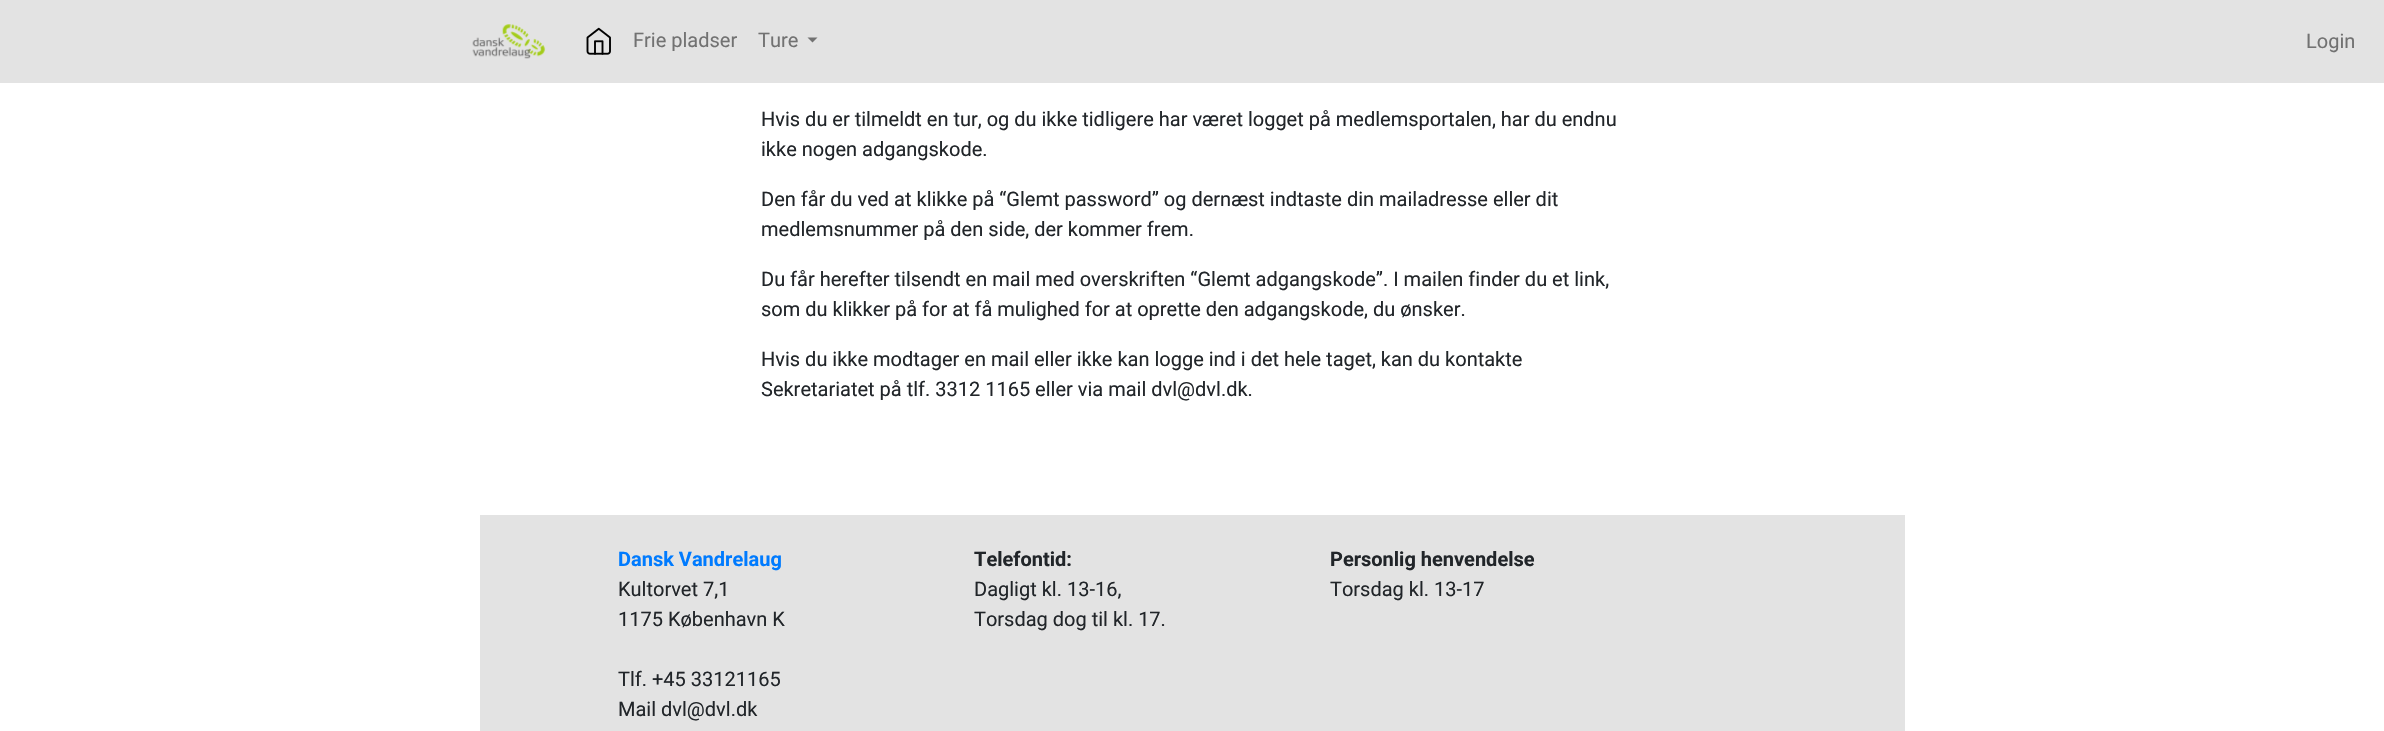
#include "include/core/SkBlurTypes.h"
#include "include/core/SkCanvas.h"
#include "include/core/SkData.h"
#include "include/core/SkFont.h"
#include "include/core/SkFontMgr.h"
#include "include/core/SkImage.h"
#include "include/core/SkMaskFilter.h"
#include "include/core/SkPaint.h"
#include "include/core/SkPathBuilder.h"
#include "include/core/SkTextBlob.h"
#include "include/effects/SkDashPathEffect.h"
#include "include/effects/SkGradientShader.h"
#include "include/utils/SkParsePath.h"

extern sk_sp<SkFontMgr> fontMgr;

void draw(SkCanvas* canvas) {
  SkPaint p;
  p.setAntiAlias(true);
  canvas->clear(SK_ColorWHITE);
  p.setColor(SkColorSetRGB(227, 227, 227));
  canvas->drawRect(SkRect::MakeLTRB(0, 0, 2384, 83), p);
  canvas->drawImageRect(SkImages::DeferredFromEncodedData(SkData::MakeFromFileName("images/1.png")), SkRect::MakeLTRB(472, 24, 546, 59), SkSamplingOptions());
  canvas->drawImageRect(SkImages::DeferredFromEncodedData(SkData::MakeFromFileName("images/2.png")), SkRect::MakeLTRB(586, 27, 611, 55), SkSamplingOptions());
  p.setColor(SkColorSetRGB(114, 114, 114));
  canvas->drawPath(SkPathBuilder().moveTo(807.5f, 37.5f).lineTo(817.5f, 37.5f).lineTo(812.5f, 42.5f).close().detach(), p);
  p.setColor(SkColorSetRGB(227, 227, 227));
  canvas->drawRect(SkRect::MakeLTRB(480, 515, 1905, 731), p);
  SkFont font1(fontMgr->matchFamilyStyle("Roboto", SkFontStyle::Normal()), 20);
  font1.setSubpixel(true);
  p.setColor(SkColorSetRGB(114, 114, 114));
  canvas->drawString("Frie pladser", 633, 47, font1, p);
  canvas->drawString("Ture", 758, 47, font1, p);
  canvas->drawString("Login", 2306, 48, font1, p);
  p.setColor(SkColorSetRGB(33, 37, 41));
  canvas->drawString("Hvis du er tilmeldt en tur, og du ikke tidligere har været logget på medlemsportalen, har du endnu", 761, 126, font1, p);
  canvas->drawString("ikke nogen adgangskode.", 761, 156, font1, p);
  canvas->drawString("Den får du ved at klikke på “Glemt password” og dernæst indtaste din mailadresse eller dit", 761, 206, font1, p);
  canvas->drawString("medlemsnummer på den side, der kommer frem.", 761, 236, font1, p);
  canvas->drawString("Du får herefter tilsendt en mail med overskriften “Glemt adgangskode”. I mailen finder du et link,", 761, 286, font1, p);
  canvas->drawString("som du klikker på for at få mulighed for at oprette den adgangskode, du ønsker.", 761, 316, font1, p);
  canvas->drawString("Hvis du ikke modtager en mail eller ikke kan logge ind i det hele taget, kan du kontakte", 761, 366, font1, p);
  canvas->drawString("Sekretariatet på tlf. 3312 1165 eller via mail dvl@dvl.dk.", 761, 396, font1, p);
  SkFont font2(fontMgr->matchFamilyStyle("Roboto", SkFontStyle::Bold()), 20);
  font2.setSubpixel(true);
  p.setColor(SkColorSetRGB(0, 123, 255));
  canvas->drawString("Dansk Vandrelaug", 618, 566, font2, p);
  p.setColor(SkColorSetRGB(33, 37, 41));
  canvas->drawString("Kultorvet 7,1", 618, 596, font1, p);
  canvas->drawString("1175 København K", 618, 626, font1, p);
  canvas->drawString("Tlf. +45 33121165", 618, 686, font1, p);
  canvas->drawString("Mail dvl@dvl.dk", 618, 716, font1, p);
  canvas->drawString("Telefontid:", 974, 566, font2, p);
  canvas->drawString("Dagligt kl. 13-16,", 974, 596, font1, p);
  canvas->drawString("Torsdag dog til kl. 17.", 974, 626, font1, p);
  canvas->drawString("Personlig henvendelse", 1330, 566, font2, p);
  canvas->drawString("Torsdag kl. 13-17", 1330, 596, font1, p);
}
